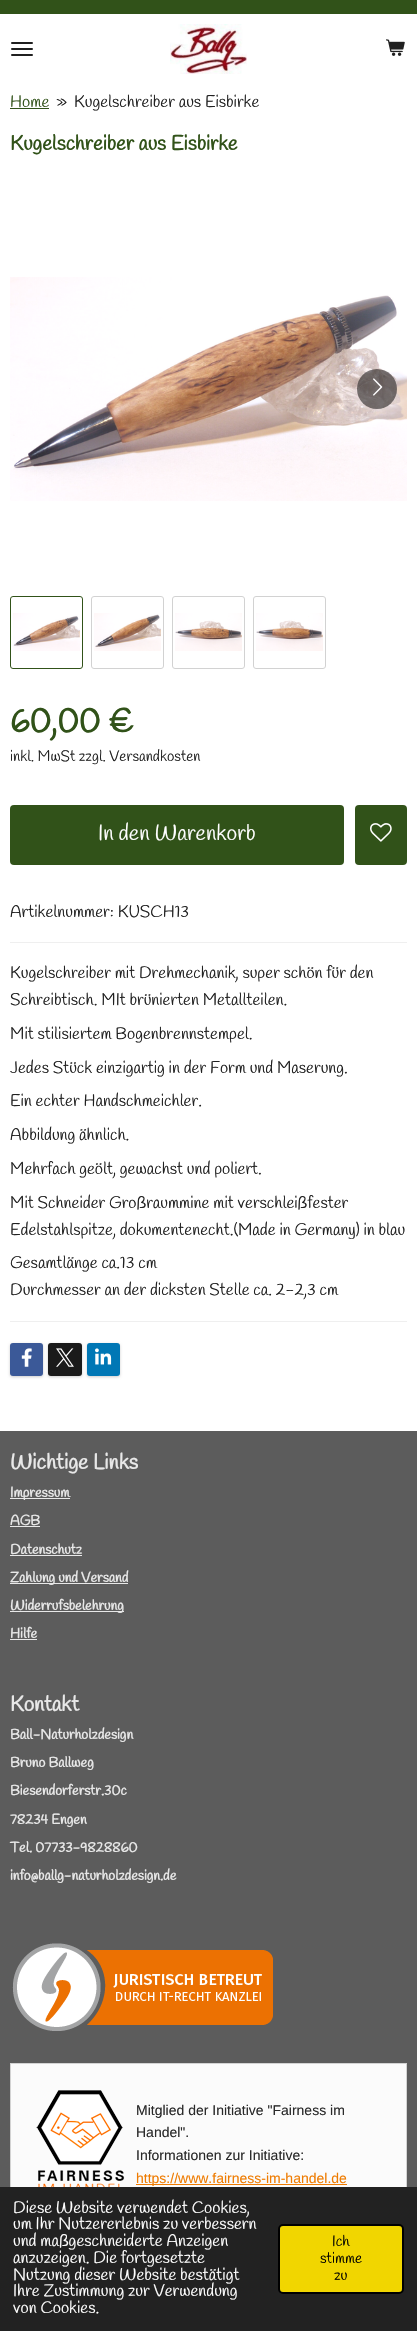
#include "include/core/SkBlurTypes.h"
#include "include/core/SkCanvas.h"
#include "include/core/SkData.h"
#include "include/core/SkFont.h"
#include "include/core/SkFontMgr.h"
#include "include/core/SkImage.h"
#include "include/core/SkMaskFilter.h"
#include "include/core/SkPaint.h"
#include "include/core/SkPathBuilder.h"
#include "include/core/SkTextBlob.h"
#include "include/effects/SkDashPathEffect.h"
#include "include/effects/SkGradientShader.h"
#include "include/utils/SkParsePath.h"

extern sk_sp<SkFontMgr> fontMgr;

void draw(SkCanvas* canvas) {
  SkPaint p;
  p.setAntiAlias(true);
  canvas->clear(SK_ColorWHITE);
  p.setColor(SkColorSetRGB(49, 82, 25));
  canvas->drawRect(SkRect::MakeLTRB(0, 0, 417, 14), p);
  p.setColor(SkColorSetRGB(32, 32, 32));
  canvas->drawRoundRect(SkRect::MakeLTRB(11, 48, 33, 50), 1, 1, p);
  canvas->drawRoundRect(SkRect::MakeLTRB(11, 42, 33, 44), 1, 1, p);
  canvas->drawRoundRect(SkRect::MakeLTRB(11, 54, 33, 56), 1, 1, p);
  canvas->drawImageRect(SkImages::DeferredFromEncodedData(SkData::MakeFromFileName("images/1.png")), SkRect::MakeLTRB(170, 24, 247, 74), SkSamplingOptions());
  canvas->drawImageRect(SkImages::DeferredFromEncodedData(SkData::MakeFromFileName("images/2.png")), SkRect::MakeLTRB(386, 39, 405, 56), SkSamplingOptions());
  p.setColor(SkColorSetRGB(49, 82, 25));
  canvas->drawRect(SkRect::MakeLTRB(10, 108, 49, 109), p);
  canvas->drawImageRect(SkImages::DeferredFromEncodedData(SkData::MakeFromFileName("images/3.png")), SkRect::MakeLTRB(10, 277, 407, 501), SkSamplingOptions());
  p.setColor(SkColorSetARGB(128, 0, 0, 0));
  canvas->drawCircle(377, 389, 20, p);
  canvas->drawImageRect(SkImages::DeferredFromEncodedData(SkData::MakeFromFileName("images/4.png")), SkRect::MakeLTRB(373, 378, 383, 396), SkSamplingOptions());
  p.setStyle(SkPaint::kStroke_Style);
  p.setStrokeWidth(1);
  p.setColor(SkColorSetRGB(49, 82, 25));
  canvas->drawRoundRect(SkRect::MakeLTRB(10.5f, 596.5f, 82.5f, 668.5f), 2.5f, 2.5f, p);
  canvas->drawImageRect(SkImages::DeferredFromEncodedData(SkData::MakeFromFileName("images/5.png")), SkRect::MakeLTRB(13, 613, 80, 651), SkSamplingOptions());
  p.setColor(SkColorSetRGB(210, 210, 210));
  canvas->drawRoundRect(SkRect::MakeLTRB(91.5f, 596.5f, 163.5f, 668.5f), 2.5f, 2.5f, p);
  canvas->drawImageRect(SkImages::DeferredFromEncodedData(SkData::MakeFromFileName("images/6.png")), SkRect::MakeLTRB(94, 613, 161, 651), SkSamplingOptions());
  canvas->drawRoundRect(SkRect::MakeLTRB(172.5f, 596.5f, 244.5f, 668.5f), 2.5f, 2.5f, p);
  canvas->drawImageRect(SkImages::DeferredFromEncodedData(SkData::MakeFromFileName("images/7.png")), SkRect::MakeLTRB(175, 613, 242, 651), SkSamplingOptions());
  canvas->drawRoundRect(SkRect::MakeLTRB(253.5f, 596.5f, 325.5f, 668.5f), 2.5f, 2.5f, p);
  canvas->drawImageRect(SkImages::DeferredFromEncodedData(SkData::MakeFromFileName("images/8.png")), SkRect::MakeLTRB(256, 613, 323, 651), SkSamplingOptions());
  p.setStyle(SkPaint::kFill_Style);
  p.setColor(SkColorSetRGB(49, 82, 25));
  canvas->drawRoundRect(SkRect::MakeLTRB(10, 805, 344, 865), 4, 4, p);
  canvas->drawRoundRect(SkRect::MakeLTRB(355, 805, 407, 865), 4, 4, p);
  canvas->drawImageRect(SkImages::DeferredFromEncodedData(SkData::MakeFromFileName("images/9.png")), SkRect::MakeLTRB(370, 823, 392, 842), SkSamplingOptions());
  p.setColor(SkColorSetRGB(239, 239, 239));
  canvas->drawRect(SkRect::MakeLTRB(10, 942, 407, 943), p);
  canvas->drawRect(SkRect::MakeLTRB(10, 1321, 407, 1322), p);
  p.setColor(SkColorSetARGB(51, 0, 0, 0));
  p.setMaskFilter(SkMaskFilter::MakeBlur(kNormal_SkBlurStyle, 1.5f));
  canvas->drawRoundRect(SkRect::MakeLTRB(10, 1344, 43, 1377), 3, 3, p);
  p.setMaskFilter(nullptr);
  p.setColor(SkColorSetRGB(59, 89, 152));
  canvas->drawRoundRect(SkRect::MakeLTRB(10, 1343, 43, 1376), 3, 3, p);
  canvas->drawImageRect(SkImages::DeferredFromEncodedData(SkData::MakeFromFileName("images/10.png")), SkRect::MakeLTRB(21, 1348, 32, 1367), SkSamplingOptions());
  p.setColor(SkColorSetARGB(51, 0, 0, 0));
  p.setMaskFilter(SkMaskFilter::MakeBlur(kNormal_SkBlurStyle, 1.5f));
  canvas->drawRoundRect(SkRect::MakeLTRB(48, 1344, 82, 1377), 3, 3, p);
  p.setMaskFilter(nullptr);
  p.setColor(SkColorSetRGB(26, 26, 26));
  canvas->drawRoundRect(SkRect::MakeLTRB(48, 1343, 82, 1376), 3, 3, p);
  canvas->drawImageRect(SkImages::DeferredFromEncodedData(SkData::MakeFromFileName("images/11.png")), SkRect::MakeLTRB(56, 1348, 74, 1367), SkSamplingOptions());
  p.setColor(SkColorSetARGB(51, 0, 0, 0));
  p.setMaskFilter(SkMaskFilter::MakeBlur(kNormal_SkBlurStyle, 1.5f));
  canvas->drawRoundRect(SkRect::MakeLTRB(87, 1344, 120, 1377), 3, 3, p);
  p.setMaskFilter(nullptr);
  p.setColor(SkColorSetRGB(0, 119, 181));
  canvas->drawRoundRect(SkRect::MakeLTRB(87, 1343, 120, 1376), 3, 3, p);
  canvas->drawImageRect(SkImages::DeferredFromEncodedData(SkData::MakeFromFileName("images/12.png")), SkRect::MakeLTRB(95, 1348, 112, 1365), SkSamplingOptions());
  p.setColor(SkColorSetRGB(92, 92, 92));
  canvas->drawRect(SkRect::MakeLTRB(0, 1431, 417, 2187), p);
  p.setColor(SkColorSetRGB(232, 232, 232));
  canvas->drawRect(SkRect::MakeLTRB(10, 1498, 70, 1499), p);
  canvas->drawRect(SkRect::MakeLTRB(10, 1526, 40, 1527), p);
  canvas->drawRect(SkRect::MakeLTRB(10, 1555, 82, 1556), p);
  canvas->drawRect(SkRect::MakeLTRB(10, 1583, 128, 1584), p);
  canvas->drawRect(SkRect::MakeLTRB(10, 1611, 124, 1612), p);
  canvas->drawRect(SkRect::MakeLTRB(10, 1639, 37, 1640), p);
  canvas->drawImageRect(SkImages::DeferredFromEncodedData(SkData::MakeFromFileName("images/13.png")), SkRect::MakeLTRB(12, 1943, 273, 2031), SkSamplingOptions());
  p.setColor(SkColorSetRGB(251, 251, 251));
  canvas->drawRect(SkRect::MakeLTRB(11, 2064, 406, 2187), p);
  p.setStyle(SkPaint::kStroke_Style);
  p.setColor(SkColorSetRGB(211, 211, 211));
  canvas->drawRect(SkRect::MakeLTRB(10.5f, 2063.5f, 406.5f, 2220.5f), p);
  canvas->drawImageRect(SkImages::DeferredFromEncodedData(SkData::MakeFromFileName("images/14.png")), SkRect::MakeLTRB(36, 2090, 125, 2187), SkSamplingOptions());
  p.setStyle(SkPaint::kFill_Style);
  p.setColor(SkColorSetRGB(239, 123, 0));
  canvas->drawRect(SkRect::MakeLTRB(136, 2184, 347, 2185), p);
  p.setColor(SkColorSetRGB(34, 34, 34));
  canvas->drawRect(SkRect::MakeLTRB(0, 2187, 417, 2331), p);
  p.setColor(SkColorSetRGB(241, 214, 0));
  canvas->drawRoundRect(SkRect::MakeLTRB(279, 2225, 403, 2293), 4, 4, p);
  p.setStyle(SkPaint::kStroke_Style);
  p.setStrokeWidth(2);
  p.setColor(SK_ColorBLACK);
  canvas->drawRoundRect(SkRect::MakeLTRB(279, 2225, 403, 2293), 4, 4, p);
  SkFont font1(fontMgr->matchFamilyStyle("Handlee", SkFontStyle::Normal()), 16.7f);
  font1.setSubpixel(true);
  p.setStyle(SkPaint::kFill_Style);
  p.setColor(SkColorSetRGB(49, 82, 25));
  canvas->drawString("Home", 10, 107, font1, p);
  p.setColor(SkColorSetRGB(32, 32, 32));
  canvas->drawString("»", 56, 107, font1, p);
  canvas->drawString("Kugelschreiber aus Eisbirke", 74, 107, font1, p);
  SkFont font2(fontMgr->matchFamilyStyle("Handlee", SkFontStyle::Bold()), 20.5f);
  font2.setSubpixel(true);
  p.setColor(SkColorSetRGB(49, 82, 25));
  canvas->drawString("Kugelschreiber aus Eisbirke", 10, 150, font2, p);
  SkFont font3(fontMgr->matchFamilyStyle("Handlee", SkFontStyle::Bold()), 33.5f);
  font3.setSubpixel(true);
  canvas->drawString("60,00 €", 10, 732, font3, p);
  SkFont font4(fontMgr->matchFamilyStyle("Handlee", SkFontStyle::Normal()), 15);
  font4.setSubpixel(true);
  p.setColor(SkColorSetRGB(32, 32, 32));
  canvas->drawString("inkl. MwSt zzgl. Versandkosten", 10, 761, font4, p);
  SkFont font5(fontMgr->matchFamilyStyle("Handlee", SkFontStyle::Normal()), 21.75f);
  font5.setSubpixel(true);
  p.setColor(SK_ColorWHITE);
  canvas->drawString("In den Warenkorb", 98, 840, font5, p);
  p.setColor(SkColorSetRGB(32, 32, 32));
  canvas->drawString("Artikelnummer: KUSCH13", 10, 917, font1, p);
  canvas->drawString("Kugelschreiber mit Drehmechanik, super schön für den", 10, 978, font1, p);
  canvas->drawString("Schreibtisch. MIt brünierten Metallteilen.", 10, 1005, font1, p);
  canvas->drawString("Mit stilisiertem Bogenbrennstempel.", 10, 1039, font1, p);
  canvas->drawString("Jedes Stück einzigartig in der Form und Maserung.", 10, 1073, font1, p);
  canvas->drawString("Ein echter Handschmeichler.", 10, 1106, font1, p);
  canvas->drawString("Abbildung ähnlich.", 10, 1140, font1, p);
  canvas->drawString("Mehrfach geölt, gewachst und poliert.", 10, 1174, font1, p);
  canvas->drawString("Mit Schneider Großraummine mit verschleißfester", 10, 1208, font1, p);
  canvas->drawString("Edelstahlspitze, dokumentenecht.(Made in Germany) in blau", 10, 1235, font1, p);
  canvas->drawString("Gesamtlänge ca.13 cm", 10, 1268, font1, p);
  canvas->drawString("Durchmesser an der dicksten Stelle ca. 2-2,3 cm", 10, 1295, font1, p);
  SkFont font6(fontMgr->matchFamilyStyle("Handlee", SkFontStyle::Bold()), 21.25f);
  font6.setSubpixel(true);
  p.setColor(SkColorSetRGB(232, 232, 232));
  canvas->drawString("Wichtige Links", 10, 1469, font6, p);
  SkFont font7(fontMgr->matchFamilyStyle("Handlee", SkFontStyle::Bold()), 14);
  font7.setSubpixel(true);
  canvas->drawString("Impressum", 10, 1497, font7, p);
  canvas->drawString("AGB", 10, 1525, font7, p);
  canvas->drawString("Datenschutz", 10, 1554, font7, p);
  canvas->drawString("Zahlung und Versand", 10, 1582, font7, p);
  canvas->drawString("Widerrufsbelehrung", 10, 1610, font7, p);
  canvas->drawString("Hilfe", 10, 1638, font7, p);
  canvas->drawString("Kontakt", 10, 1711, font6, p);
  canvas->drawString("Ball-Naturholzdesign", 10, 1739, font7, p);
  canvas->drawString("Bruno Ballweg", 10, 1767, font7, p);
  canvas->drawString("Biesendorferstr.30c", 10, 1795, font7, p);
  canvas->drawString("78234 Engen", 10, 1824, font7, p);
  canvas->drawString("Tel. 07733-9828860", 10, 1852, font7, p);
  canvas->drawString("info@ballg-naturholzdesign.de", 10, 1880, font7, p);
  SkFont font8(fontMgr->matchFamilyStyle("Liberation Sans", SkFontStyle::Normal()), 14);
  font8.setSubpixel(true);
  p.setColor(SkColorSetRGB(41, 41, 41));
  canvas->drawString("Mitglied der Initiative \"Fairness im", 136, 2115, font8, p);
  canvas->drawString("Handel\".", 136, 2137, font8, p);
  canvas->drawString("Informationen zur Initiative:", 136, 2160, font8, p);
  p.setColor(SkColorSetRGB(239, 123, 0));
  canvas->drawString("https://www.fairness-im-handel.de", 136, 2183, font8, p);
  p.setColor(SK_ColorWHITE);
  canvas->drawString("Diese Website verwendet Cookies,", 13, 2213, font1, p);
  canvas->drawString("um Ihr Nutzererlebnis zu verbessern", 13, 2229, font1, p);
  canvas->drawString("und maßgeschneiderte Anzeigen", 13, 2246, font1, p);
  canvas->drawString("anzuzeigen. Die fortgesetzte", 13, 2263, font1, p);
  canvas->drawString("Nutzung dieser Website bestätigt", 13, 2280, font1, p);
  canvas->drawString("Ihre Zustimmung zur Verwendung", 13, 2296, font1, p);
  canvas->drawString("von Cookies.", 13, 2313, font1, p);
  p.setColor(SK_ColorBLACK);
  canvas->drawString("Ich", 332, 2246, font4, p);
  canvas->drawString("stimme", 320, 2263, font4, p);
  canvas->drawString("zu", 334, 2280, font4, p);
}
